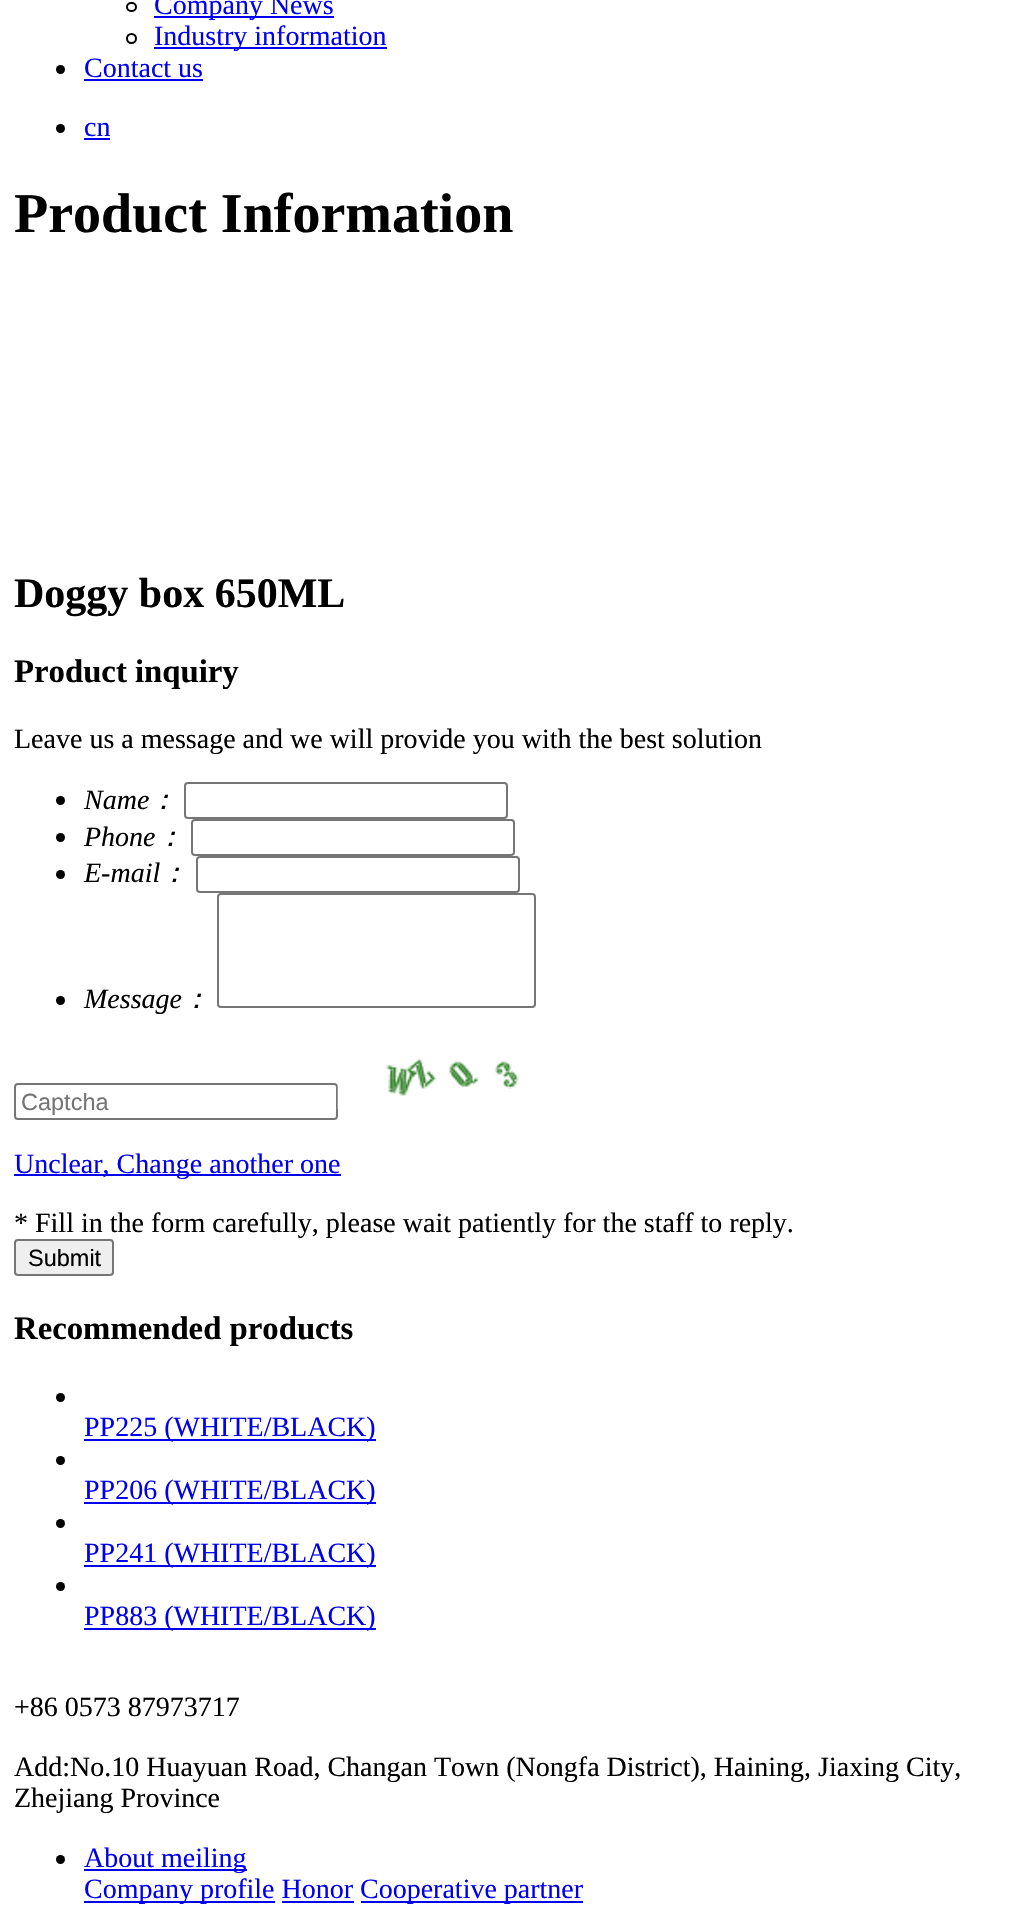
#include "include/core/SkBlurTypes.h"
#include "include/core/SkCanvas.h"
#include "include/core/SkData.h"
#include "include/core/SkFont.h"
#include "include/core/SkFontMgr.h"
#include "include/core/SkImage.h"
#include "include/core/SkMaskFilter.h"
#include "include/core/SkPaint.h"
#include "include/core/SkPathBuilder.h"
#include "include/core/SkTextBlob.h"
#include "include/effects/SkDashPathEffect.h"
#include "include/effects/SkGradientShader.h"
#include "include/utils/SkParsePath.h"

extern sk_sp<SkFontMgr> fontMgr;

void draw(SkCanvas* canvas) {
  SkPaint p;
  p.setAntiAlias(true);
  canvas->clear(SK_ColorWHITE);
  p.setStyle(SkPaint::kStroke_Style);
  p.setStrokeWidth(2);
  p.setColor(SK_ColorBLACK);
  canvas->drawRoundRect(SkRect::MakeLTRB(127, 3, 136, 11), 4, 4, p);
  p.setStyle(SkPaint::kFill_Style);
  p.setColor(SkColorSetRGB(0, 0, 238));
  canvas->drawRect(SkRect::MakeLTRB(154, 16, 334, 18), p);
  p.setStyle(SkPaint::kStroke_Style);
  p.setColor(SK_ColorBLACK);
  canvas->drawCircle(131.5f, 38.5f, 4.5f, p);
  p.setStyle(SkPaint::kFill_Style);
  p.setColor(SkColorSetRGB(0, 0, 238));
  canvas->drawRect(SkRect::MakeLTRB(154, 47, 387, 49), p);
  p.setColor(SK_ColorBLACK);
  canvas->drawCircle(60.5f, 69.5f, 4.5f, p);
  p.setColor(SkColorSetRGB(0, 0, 238));
  canvas->drawRect(SkRect::MakeLTRB(84, 79, 203, 81), p);
  p.setColor(SK_ColorBLACK);
  canvas->drawCircle(60.5f, 128.5f, 4.5f, p);
  p.setColor(SkColorSetRGB(0, 0, 238));
  canvas->drawRect(SkRect::MakeLTRB(84, 138, 110, 140), p);
  p.setColor(SK_ColorBLACK);
  canvas->drawCircle(60.5f, 800.5f, 4.5f, p);
  p.setStyle(SkPaint::kStroke_Style);
  p.setColor(SkColorSetRGB(118, 118, 118));
  canvas->drawRoundRect(SkRect::MakeLTRB(185, 783, 507, 818), 3, 3, p);
  p.setStyle(SkPaint::kFill_Style);
  p.setColor(SK_ColorBLACK);
  canvas->drawCircle(60.5f, 837.5f, 4.5f, p);
  p.setStyle(SkPaint::kStroke_Style);
  p.setColor(SkColorSetRGB(118, 118, 118));
  canvas->drawRoundRect(SkRect::MakeLTRB(192, 820, 514, 855), 3, 3, p);
  p.setStyle(SkPaint::kFill_Style);
  p.setColor(SK_ColorBLACK);
  canvas->drawCircle(60.5f, 874.5f, 4.5f, p);
  p.setStyle(SkPaint::kStroke_Style);
  p.setColor(SkColorSetRGB(118, 118, 118));
  canvas->drawRoundRect(SkRect::MakeLTRB(197, 857, 519, 892), 3, 3, p);
  p.setStyle(SkPaint::kFill_Style);
  p.setColor(SK_ColorBLACK);
  canvas->drawCircle(60.5f, 1000.5f, 4.5f, p);
  p.setStyle(SkPaint::kStroke_Style);
  p.setColor(SkColorSetRGB(118, 118, 118));
  canvas->drawRoundRect(SkRect::MakeLTRB(218, 894, 535, 1007), 3, 3, p);
  canvas->drawRoundRect(SkRect::MakeLTRB(15, 1084, 337, 1119), 3, 3, p);
  canvas->drawImageRect(SkImages::DeferredFromEncodedData(SkData::MakeFromFileName("images/1.png")), SkRect::MakeLTRB(337, 1058, 519, 1110), SkSamplingOptions());
  p.setStyle(SkPaint::kFill_Style);
  p.setColor(SkColorSetRGB(0, 0, 238));
  canvas->drawRect(SkRect::MakeLTRB(14, 1174, 341, 1176), p);
  p.setColor(SkColorSetRGB(239, 239, 239));
  canvas->drawRoundRect(SkRect::MakeLTRB(15, 1240, 113, 1275), 3, 3, p);
  p.setStyle(SkPaint::kStroke_Style);
  p.setColor(SkColorSetRGB(118, 118, 118));
  canvas->drawRoundRect(SkRect::MakeLTRB(15, 1240, 113, 1275), 3, 3, p);
  p.setStyle(SkPaint::kFill_Style);
  p.setColor(SK_ColorBLACK);
  canvas->drawCircle(60.5f, 1397.5f, 4.5f, p);
  p.setColor(SkColorSetRGB(0, 0, 238));
  canvas->drawRect(SkRect::MakeLTRB(84, 1439, 376, 1441), p);
  p.setColor(SK_ColorBLACK);
  canvas->drawCircle(60.5f, 1460.5f, 4.5f, p);
  p.setColor(SkColorSetRGB(0, 0, 238));
  canvas->drawRect(SkRect::MakeLTRB(84, 1502, 376, 1504), p);
  p.setColor(SK_ColorBLACK);
  canvas->drawCircle(60.5f, 1523.5f, 4.5f, p);
  p.setColor(SkColorSetRGB(0, 0, 238));
  canvas->drawRect(SkRect::MakeLTRB(84, 1565, 376, 1567), p);
  p.setColor(SK_ColorBLACK);
  canvas->drawCircle(60.5f, 1586.5f, 4.5f, p);
  p.setColor(SkColorSetRGB(0, 0, 238));
  canvas->drawRect(SkRect::MakeLTRB(84, 1628, 376, 1630), p);
  p.setColor(SK_ColorBLACK);
  canvas->drawCircle(60.5f, 1859.5f, 4.5f, p);
  p.setColor(SkColorSetRGB(0, 0, 238));
  canvas->drawRect(SkRect::MakeLTRB(84, 1869, 247, 1871), p);
  canvas->drawRect(SkRect::MakeLTRB(84, 1901, 275, 1903), p);
  canvas->drawRect(SkRect::MakeLTRB(361, 1901, 583, 1903), p);
  canvas->drawRect(SkRect::MakeLTRB(282, 1901, 354, 1903), p);
  SkFont font1(fontMgr->matchFamilyStyle("Liberation Serif", SkFontStyle::Normal()), 28);
  font1.setSubpixel(true);
  canvas->drawString("Company News", 154, 14, font1, p);
  canvas->drawString("Industry information", 154, 45, font1, p);
  canvas->drawString("Contact us", 84, 77, font1, p);
  canvas->drawString("cn", 84, 136, font1, p);
  SkFont font2(fontMgr->matchFamilyStyle("Liberation Serif", SkFontStyle::Bold()), 56);
  font2.setSubpixel(true);
  p.setColor(SK_ColorBLACK);
  canvas->drawString("Product Information", 14, 232, font2, p);
  SkFont font3(fontMgr->matchFamilyStyle("Liberation Serif", SkFontStyle::Bold()), 42);
  font3.setSubpixel(true);
  canvas->drawString("Doggy box 650ML", 14, 607, font3, p);
  SkFont font4(fontMgr->matchFamilyStyle("Liberation Serif", SkFontStyle::Bold()), 32.75f);
  font4.setSubpixel(true);
  canvas->drawString("Product inquiry", 14, 682, font4, p);
  canvas->drawString("Leave us a message and we will provide you with the best solution", 14, 748, font1, p);
  SkFont font5(fontMgr->matchFamilyStyle("Liberation Serif", SkFontStyle::Italic()), 28);
  font5.setSubpixel(true);
  canvas->drawString("Name", 84, 809, font5, p);
  SkFont font6(fontMgr->matchFamilyStyle("WenQuanYi Zen Hei", SkFontStyle(500, SkFontStyle::kNormal_Width, SkFontStyle::kItalic_Slant)), 28);
  font6.setSubpixel(true);
  canvas->drawString("：", 149, 809, font6, p);
  canvas->drawString("Phone", 84, 846, font5, p);
  canvas->drawString("：", 156, 846, font6, p);
  canvas->drawString("E-mail", 84, 882, font5, p);
  canvas->drawString("：", 160, 882, font6, p);
  canvas->drawString("Message", 84, 1008, font5, p);
  canvas->drawString("：", 182, 1008, font6, p);
  SkFont font7(fontMgr->matchFamilyStyle("Liberation Sans", SkFontStyle::Normal()), 23.5f);
  font7.setSubpixel(true);
  p.setColor(SkColorSetRGB(117, 117, 117));
  canvas->drawString("Captcha", 21, 1110, font7, p);
  p.setColor(SkColorSetRGB(0, 0, 238));
  canvas->drawString("Unclear, Change another one", 14, 1173, font1, p);
  p.setColor(SK_ColorBLACK);
  canvas->drawString("* Fill in the form carefully, please wait patiently for the staff to reply.", 14, 1232, font1, p);
  canvas->drawString("Submit", 28, 1266, font7, p);
  canvas->drawString("Recommended products", 14, 1339, font4, p);
  p.setColor(SkColorSetRGB(0, 0, 238));
  canvas->drawString("PP225 (WHITE/BLACK)", 84, 1436, font1, p);
  canvas->drawString("PP206 (WHITE/BLACK)", 84, 1499, font1, p);
  canvas->drawString("PP241 (WHITE/BLACK)", 84, 1562, font1, p);
  canvas->drawString("PP883 (WHITE/BLACK)", 84, 1625, font1, p);
  p.setColor(SK_ColorBLACK);
  canvas->drawString("+86 0573 87973717", 14, 1716, font1, p);
  canvas->drawString("Add:No.10 Huayuan Road, Changan Town (Nongfa District), Haining, Jiaxing City,", 14, 1776, font1, p);
  canvas->drawString("Zhejiang Province", 14, 1807, font1, p);
  p.setColor(SkColorSetRGB(0, 0, 238));
  canvas->drawString("About meiling", 84, 1867, font1, p);
  canvas->drawString("Company profile Honor", 84, 1898, font1, p);
  canvas->drawString("Cooperative partner", 360, 1898, font1, p);
}
